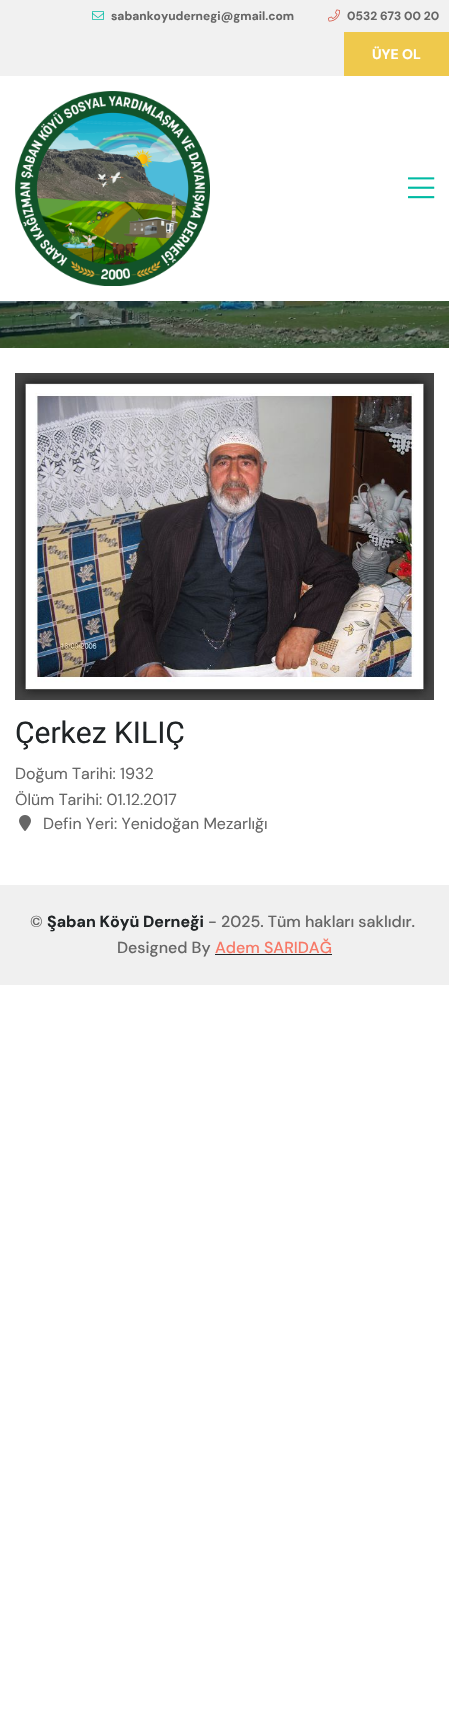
#include "include/core/SkBlurTypes.h"
#include "include/core/SkCanvas.h"
#include "include/core/SkData.h"
#include "include/core/SkFont.h"
#include "include/core/SkFontMgr.h"
#include "include/core/SkImage.h"
#include "include/core/SkMaskFilter.h"
#include "include/core/SkPaint.h"
#include "include/core/SkPathBuilder.h"
#include "include/core/SkTextBlob.h"
#include "include/effects/SkDashPathEffect.h"
#include "include/effects/SkGradientShader.h"
#include "include/utils/SkParsePath.h"

extern sk_sp<SkFontMgr> fontMgr;

void draw(SkCanvas* canvas) {
  SkPaint p;
  p.setAntiAlias(true);
  canvas->clear(SK_ColorWHITE);
  p.setColor(SkColorSetRGB(241, 241, 241));
  canvas->drawRect(SkRect::MakeLTRB(0, 0, 449, 76), p);
  canvas->drawImageRect(SkImages::DeferredFromEncodedData(SkData::MakeFromFileName("images/1.png")), SkRect::MakeLTRB(92, 11, 104, 20), SkSamplingOptions());
  canvas->drawImageRect(SkImages::DeferredFromEncodedData(SkData::MakeFromFileName("images/2.png")), SkRect::MakeLTRB(328, 9, 340, 22), SkSamplingOptions());
  p.setColor(SkColorSetRGB(239, 201, 76));
  canvas->drawRect(SkRect::MakeLTRB(344, 32, 449, 76), p);
  canvas->drawImageRect(SkImages::DeferredFromEncodedData(SkData::MakeFromFileName("images/3.png")), SkRect::MakeLTRB(15, 91, 210, 286), SkSamplingOptions());
  canvas->drawImageRect(SkImages::DeferredFromEncodedData(SkData::MakeFromFileName("images/4.png")), SkRect::MakeLTRB(408, 177, 435, 199), SkSamplingOptions());
  canvas->drawImageRect(SkImages::DeferredFromEncodedData(SkData::MakeFromFileName("images/5.png")), SkRect::MakeLTRB(0, 301, 449, 348), SkSamplingOptions());
  canvas->drawImageRect(SkImages::DeferredFromEncodedData(SkData::MakeFromFileName("images/6.png")), SkRect::MakeLTRB(15, 373, 434, 700), SkSamplingOptions());
  canvas->drawImageRect(SkImages::DeferredFromEncodedData(SkData::MakeFromFileName("images/7.png")), SkRect::MakeLTRB(19, 815, 31, 831), SkSamplingOptions());
  p.setColor(SkColorSetRGB(240, 240, 240));
  canvas->drawRect(SkRect::MakeLTRB(0, 885, 449, 985), p);
  p.setColor(SkColorSetRGB(32, 36, 38));
  canvas->drawRect(SkRect::MakeLTRB(215, 954, 332, 955), p);
  SkFont font1(fontMgr->matchFamilyStyle("DM Sans", SkFontStyle::Bold()), 12);
  font1.setSubpixel(true);
  p.setColor(SkColorSetRGB(102, 102, 102));
  canvas->drawString("sabankoyudernegi@gmail.com", 111, 20, font1, p);
  canvas->drawString("0532 673 00 20", 347, 20, font1, p);
  SkFont font2(fontMgr->matchFamilyStyle("DM Sans", SkFontStyle::Bold()), 14);
  font2.setSubpixel(true);
  p.setColor(SK_ColorWHITE);
  canvas->drawString("ÜYE OL", 372, 59, font2, p);
  SkFont font3(fontMgr->matchFamilyStyle("Roboto", SkFontStyle::Normal()), 30);
  font3.setSubpixel(true);
  p.setColor(SkColorSetRGB(32, 36, 38));
  canvas->drawString("Çerkez KILIÇ", 15, 743, font3, p);
  SkFont font4(fontMgr->matchFamilyStyle("DM Sans", SkFontStyle::Normal()), 16);
  font4.setSubpixel(true);
  p.setColor(SkColorSetRGB(102, 102, 102));
  canvas->drawString("Doğum Tarihi: 1932", 15, 779, font4, p);
  canvas->drawString("Ölüm Tarihi: 01.12.2017", 15, 805, font4, p);
  canvas->drawString("Defin Yeri: Yenidoğan Mezarlığı", 43, 829, font4, p);
  SkFont font5(fontMgr->matchFamilyStyle("DM Sans", SkFontStyle(500, SkFontStyle::kNormal_Width, SkFontStyle::kUpright_Slant)), 16);
  font5.setSubpixel(true);
  canvas->drawString("©", 30, 927, font5, p);
  SkFont font6(fontMgr->matchFamilyStyle("DM Sans", SkFontStyle::Bold()), 16);
  font6.setSubpixel(true);
  p.setColor(SkColorSetRGB(32, 36, 38));
  canvas->drawString("Şaban Köyü Derneği", 47, 927, font6, p);
  p.setColor(SkColorSetRGB(102, 102, 102));
  canvas->drawString("- 2025. Tüm hakları saklıdır.", 208, 927, font5, p);
  canvas->drawString("Designed By", 117, 953, font5, p);
  p.setColor(SkColorSetRGB(247, 121, 103));
  canvas->drawString("Adem SARIDAĞ", 215, 953, font5, p);
}
